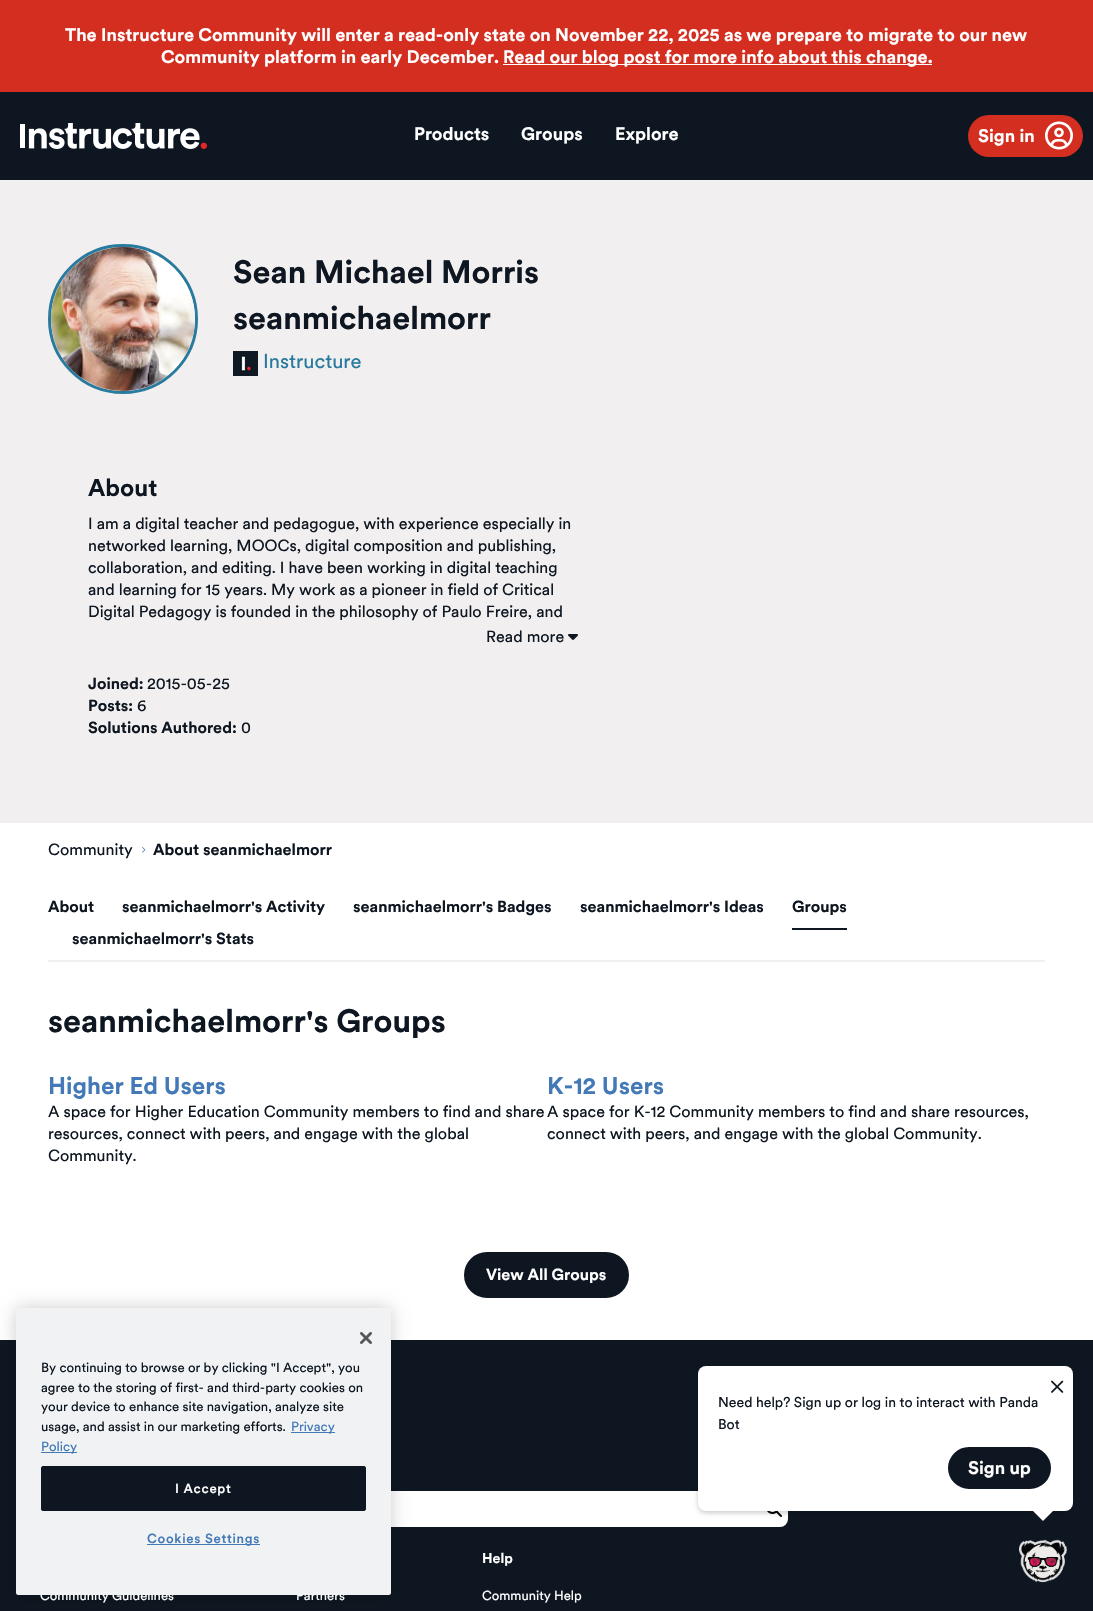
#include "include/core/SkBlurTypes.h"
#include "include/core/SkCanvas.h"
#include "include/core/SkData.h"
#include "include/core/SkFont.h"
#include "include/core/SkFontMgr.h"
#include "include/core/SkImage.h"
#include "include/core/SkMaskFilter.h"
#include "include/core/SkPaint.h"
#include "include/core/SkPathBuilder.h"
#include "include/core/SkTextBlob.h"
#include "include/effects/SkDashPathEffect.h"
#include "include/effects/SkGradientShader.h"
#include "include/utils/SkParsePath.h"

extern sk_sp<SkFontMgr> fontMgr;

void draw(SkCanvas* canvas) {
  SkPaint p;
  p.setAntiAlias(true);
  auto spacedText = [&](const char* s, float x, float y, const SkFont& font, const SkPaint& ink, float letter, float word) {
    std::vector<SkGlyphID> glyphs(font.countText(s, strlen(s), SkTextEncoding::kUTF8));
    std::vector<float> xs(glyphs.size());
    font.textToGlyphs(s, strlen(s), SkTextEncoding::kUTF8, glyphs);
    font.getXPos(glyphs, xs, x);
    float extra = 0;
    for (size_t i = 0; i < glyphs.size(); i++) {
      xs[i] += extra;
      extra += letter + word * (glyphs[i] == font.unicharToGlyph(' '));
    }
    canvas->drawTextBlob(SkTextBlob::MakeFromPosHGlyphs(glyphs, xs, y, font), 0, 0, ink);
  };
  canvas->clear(SK_ColorWHITE);
  p.setColor(SkColorSetRGB(14, 23, 33));
  canvas->drawRect(SkRect::MakeLTRB(0, 92, 1093, 180), p);
  p.setColor(SkColorSetRGB(212, 46, 33));
  canvas->drawRect(SkRect::MakeLTRB(0, 0, 1093, 92), p);
  p.setColor(SK_ColorWHITE);
  canvas->drawRect(SkRect::MakeLTRB(503, 64, 932, 65), p);
  canvas->drawImageRect(SkImages::DeferredFromEncodedData(SkData::MakeFromFileName("images/1.png")), SkRect::MakeLTRB(20, 123, 207, 149), SkSamplingOptions());
  p.setColor(SkColorSetRGB(212, 46, 33));
  canvas->drawRoundRect(SkRect::MakeLTRB(968, 115, 1083, 157), 21, 21, p);
  canvas->drawImageRect(SkImages::DeferredFromEncodedData(SkData::MakeFromFileName("images/2.png")), SkRect::MakeLTRB(1045, 121, 1073, 150), SkSamplingOptions());
  p.setColor(SkColorSetRGB(242, 239, 240));
  canvas->drawRect(SkRect::MakeLTRB(0, 180, 1093, 823), p);
  p.setStyle(SkPaint::kStroke_Style);
  p.setStrokeWidth(3);
  p.setColor(SkColorSetRGB(40, 122, 159));
  canvas->drawCircle(123, 319, 73.5f, p);
  canvas->drawImageRect(SkImages::DeferredFromEncodedData(SkData::MakeFromFileName("images/3.png")), SkRect::MakeLTRB(51, 247, 195, 391), SkSamplingOptions());
  canvas->drawImageRect(SkImages::DeferredFromEncodedData(SkData::MakeFromFileName("images/4.png")), SkRect::MakeLTRB(233, 351, 258, 376), SkSamplingOptions());
  canvas->drawImageRect(SkImages::DeferredFromEncodedData(SkData::MakeFromFileName("images/5.png")), SkRect::MakeLTRB(568, 634, 578, 640), SkSamplingOptions());
  canvas->drawImageRect(SkImages::DeferredFromEncodedData(SkData::MakeFromFileName("images/6.png")), SkRect::MakeLTRB(142, 847, 146, 853), SkSamplingOptions());
  p.setStyle(SkPaint::kFill_Style);
  p.setColor(SkColorSetRGB(242, 239, 240));
  canvas->drawRect(SkRect::MakeLTRB(48, 960, 1045, 962), p);
  p.setColor(SkColorSetRGB(14, 23, 33));
  canvas->drawRect(SkRect::MakeLTRB(792, 928, 847, 930), p);
  canvas->drawRoundRect(SkRect::MakeLTRB(465, 1253, 628, 1297), 22, 22, p);
  p.setStyle(SkPaint::kStroke_Style);
  p.setStrokeWidth(2);
  canvas->drawRoundRect(SkRect::MakeLTRB(465, 1253, 628, 1297), 22, 22, p);
  p.setStyle(SkPaint::kFill_Style);
  canvas->drawRect(SkRect::MakeLTRB(0, 1340, 1093, 1611), p);
  p.setColor(SK_ColorWHITE);
  canvas->drawRoundRect(SkRect::MakeLTRB(41, 1490, 789, 1528), 9, 9, p);
  p.setStyle(SkPaint::kStroke_Style);
  p.setColor(SkColorSetRGB(14, 23, 33));
  canvas->drawRoundRect(SkRect::MakeLTRB(41, 1490, 789, 1528), 9, 9, p);
  canvas->drawImageRect(SkImages::DeferredFromEncodedData(SkData::MakeFromFileName("images/10.png")), SkRect::MakeLTRB(767, 1511, 782, 1517), SkSamplingOptions());
  p.setStyle(SkPaint::kFill_Style);
  p.setColor(SkColorSetARGB(51, 0, 0, 0));
  p.setMaskFilter(SkMaskFilter::MakeBlur(kNormal_SkBlurStyle, 2.5f));
  canvas->drawRoundRect(SkRect::MakeLTRB(698, 1368, 1073, 1513), 8, 8, p);
  p.setMaskFilter(nullptr);
  p.setColor(SK_ColorWHITE);
  canvas->drawRoundRect(SkRect::MakeLTRB(698, 1366, 1073, 1511), 8, 8, p);
  canvas->drawImageRect(SkImages::DeferredFromEncodedData(SkData::MakeFromFileName("images/7.png")), SkRect::MakeLTRB(1051, 1380, 1064, 1393), SkSamplingOptions());
  p.setColor(SkColorSetRGB(14, 23, 33));
  canvas->drawRoundRect(SkRect::MakeLTRB(947, 1446, 1052, 1490), 22, 22, p);
  p.setStyle(SkPaint::kStroke_Style);
  p.setColor(SK_ColorWHITE);
  canvas->drawRoundRect(SkRect::MakeLTRB(947, 1446, 1052, 1490), 22, 22, p);
  p.setStyle(SkPaint::kFill_Style);
  canvas->drawPath(SkPathBuilder().moveTo(1033, 1511).lineTo(1053, 1511).lineTo(1043, 1521).close().detach(), p);
  canvas->drawImageRect(SkImages::DeferredFromEncodedData(SkData::MakeFromFileName("images/8.png")), SkRect::MakeLTRB(1019, 1539, 1067, 1583), SkSamplingOptions());
  p.setColor(SkColorSetARGB(51, 0, 0, 0));
  p.setMaskFilter(SkMaskFilter::MakeBlur(kNormal_SkBlurStyle, 9));
  canvas->drawRoundRect(SkRect::MakeLTRB(16, 1308, 391, 1595), 2.5f, 2.5f, p);
  p.setMaskFilter(nullptr);
  SkFont font1(fontMgr->matchFamilyStyle("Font", SkFontStyle::Bold()), 18);
  font1.setSubpixel(true);
  p.setColor(SK_ColorWHITE);
  canvas->drawString("The Instructure Community will enter a read-only state on November 22, 2025 as we prepare to migrate to our new", 65, 41, font1, p);
  canvas->drawString("Community platform in early December.", 161, 63, font1, p);
  canvas->drawString("Read our blog post for more info about this change.", 503, 63, font1, p);
  canvas->drawString("Products", 414, 140, font1, p);
  canvas->drawString("Groups", 521, 140, font1, p);
  canvas->drawString("Explore", 615, 140, font1, p);
  canvas->drawString("Sign in", 978, 142, font1, p);
  SkFont font2(fontMgr->matchFamilyStyle("Font", SkFontStyle::Bold()), 32);
  font2.setSubpixel(true);
  p.setColor(SkColorSetRGB(14, 23, 33));
  canvas->drawString("Sean Michael Morris", 233, 283, font2, p);
  canvas->drawString("seanmichaelmorr", 233, 329, font2, p);
  SkFont font3(fontMgr->matchFamilyStyle("Font", SkFontStyle::Normal()), 20);
  font3.setSubpixel(true);
  p.setColor(SkColorSetRGB(40, 122, 159));
  canvas->drawString("Instructure", 263, 368, font3, p);
  SkFont font4(fontMgr->matchFamilyStyle("Font", SkFontStyle::Bold()), 24);
  font4.setSubpixel(true);
  p.setColor(SkColorSetRGB(14, 23, 33));
  canvas->drawString("About", 88, 496, font4, p);
  SkFont font5(fontMgr->matchFamilyStyle("Font", SkFontStyle::Normal()), 16);
  font5.setSubpixel(true);
  canvas->drawString("I am a digital teacher and pedagogue, with experience especially in", 88, 529, font5, p);
  canvas->drawString("networked learning, MOOCs, digital composition and publishing,", 88, 551, font5, p);
  canvas->drawString("collaboration, and editing. I have been working in digital teaching", 88, 573, font5, p);
  canvas->drawString("and learning for 15 years. My work as a pioneer in field of Critical", 88, 595, font5, p);
  canvas->drawString("Digital Pedagogy is founded in the philosophy of Paulo Freire, and", 88, 617, font5, p);
  canvas->drawString("Read more", 486, 642, font5, p);
  SkFont font6(fontMgr->matchFamilyStyle("Font", SkFontStyle::Bold()), 16);
  font6.setSubpixel(true);
  canvas->drawString("Joined:", 88, 689, font6, p);
  canvas->drawString("2015-05-25", 147, 689, font5, p);
  canvas->drawString("Posts:", 88, 711, font6, p);
  canvas->drawString("6", 137, 711, font5, p);
  canvas->drawString("Solutions Authored:", 88, 733, font6, p);
  canvas->drawString("0", 241, 733, font5, p);
  canvas->drawString("Community", 48, 855, font5, p);
  canvas->drawString("About seanmichaelmorr", 153, 855, font6, p);
  canvas->drawString("About", 48, 912, font6, p);
  canvas->drawString("seanmichaelmorr's Activity", 122, 912, font6, p);
  canvas->drawString("seanmichaelmorr's Badges", 353, 912, font6, p);
  canvas->drawString("seanmichaelmorr's Ideas", 580, 912, font6, p);
  canvas->drawString("Groups", 792, 912, font6, p);
  canvas->drawString("seanmichaelmorr's Stats", 72, 944, font6, p);
  canvas->drawString("seanmichaelmorr's Groups", 48, 1032, font2, p);
  p.setColor(SkColorSetRGB(66, 121, 182));
  canvas->drawString("Higher Ed Users", 48, 1094, font4, p);
  p.setColor(SkColorSetRGB(14, 23, 33));
  canvas->drawString("A space for Higher Education Community members to find and share", 48, 1117, font5, p);
  canvas->drawString("resources, connect with peers, and engage with the global", 48, 1139, font5, p);
  canvas->drawString("Community.", 48, 1161, font5, p);
  p.setColor(SkColorSetRGB(66, 121, 182));
  canvas->drawString("K-12 Users", 547, 1094, font4, p);
  p.setColor(SkColorSetRGB(14, 23, 33));
  canvas->drawString("A space for K-12 Community members to find and share resources,", 547, 1117, font5, p);
  canvas->drawString("connect with peers, and engage with the global Community.", 547, 1139, font5, p);
  p.setColor(SK_ColorWHITE);
  canvas->drawString("View All Groups", 486, 1280, font6, p);
  SkFont font7(fontMgr->matchFamilyStyle("Font", SkFontStyle::Normal()), 14);
  font7.setSubpixel(true);
  p.setColor(SkColorSetRGB(14, 23, 33));
  canvas->drawString("Need help? Sign up or log in to interact with Panda", 718, 1407, font7, p);
  canvas->drawString("Bot", 718, 1429, font7, p);
  p.setColor(SK_ColorWHITE);
  canvas->drawString("Sign up", 968, 1474, font1, p);
  SkFont font8(fontMgr->matchFamilyStyle("Font", SkFontStyle::Normal()), 13);
  font8.setSubpixel(true);
  canvas->drawString("Community Guidelines", 40, 1600, font8, p);
  canvas->drawString("Partners", 296, 1600, font8, p);
  p.setColor(SkColorSetRGB(240, 242, 243));
  canvas->drawRoundRect(SkRect::MakeLTRB(16, 1308, 391, 1595), 2.5f, 2.5f, p);
  canvas->drawImageRect(SkImages::DeferredFromEncodedData(SkData::MakeFromFileName("images/9.png")), SkRect::MakeLTRB(360, 1332, 372, 1344), SkSamplingOptions());
  p.setColor(SkColorSetRGB(66, 121, 182));
  canvas->drawRect(SkRect::MakeLTRB(147, 1544, 260, 1545), p);
  SkFont font9(fontMgr->matchFamilyStyle("Font", SkFontStyle(500, SkFontStyle::kNormal_Width, SkFontStyle::kUpright_Slant)), 13.1f);
  font9.setSubpixel(true);
  spacedText("Cookies Settings", 147, 1543, font9, p, 0.7f, 0);
  p.setColor(SkColorSetRGB(14, 23, 33));
  canvas->drawRoundRect(SkRect::MakeLTRB(41.5f, 1466.5f, 365.5f, 1510.5f), 1.5f, 1.5f, p);
  p.setStyle(SkPaint::kStroke_Style);
  p.setStrokeWidth(1);
  canvas->drawRoundRect(SkRect::MakeLTRB(41.5f, 1466.5f, 365.5f, 1510.5f), 1.5f, 1.5f, p);
  p.setStyle(SkPaint::kFill_Style);
  p.setColor(SK_ColorWHITE);
  spacedText("I Accept", 175, 1493, font9, p, 0.7f, 0);
  p.setColor(SkColorSetRGB(66, 121, 182));
  canvas->drawRect(SkRect::MakeLTRB(41, 1452, 77, 1453), p);
  SkFont font10(fontMgr->matchFamilyStyle("Font", SkFontStyle::Normal()), 13.1f);
  font10.setSubpixel(true);
  canvas->drawString("Policy", 41, 1451, font10, p);
  canvas->drawRect(SkRect::MakeLTRB(291, 1432, 335, 1433), p);
  canvas->drawString("Privacy", 291, 1431, font10, p);
  p.setColor(SkColorSetRGB(14, 23, 33));
  canvas->drawString("usage, and assist in our marketing efforts.", 41, 1431, font10, p);
  canvas->drawString("your device to enhance site navigation, analyze site", 41, 1411, font10, p);
  canvas->drawString("agree to the storing of first- and third-party cookies on", 41, 1392, font10, p);
  canvas->drawString("By continuing to browse or by clicking \"I Accept\", you", 41, 1372, font10, p);
  SkFont font11(fontMgr->matchFamilyStyle("Font", SkFontStyle::Bold()), 14);
  font11.setSubpixel(true);
  p.setColor(SK_ColorWHITE);
  canvas->drawString("Help", 482, 1563, font11, p);
  canvas->drawString("Community Help", 482, 1600, font8, p);
}
